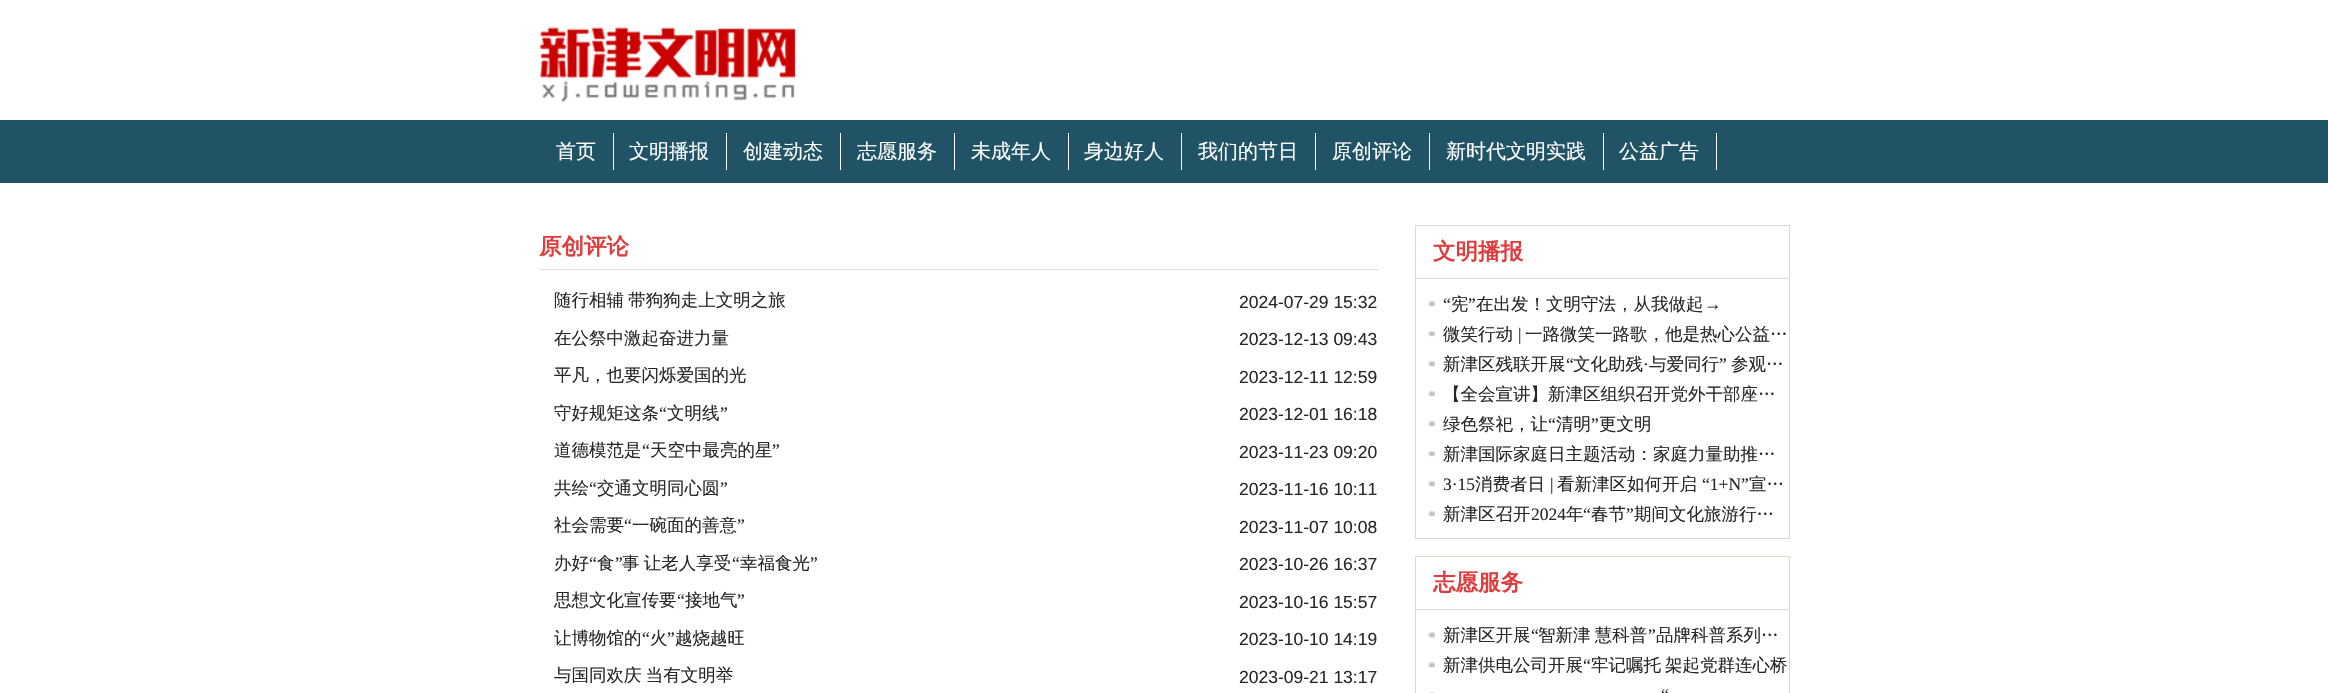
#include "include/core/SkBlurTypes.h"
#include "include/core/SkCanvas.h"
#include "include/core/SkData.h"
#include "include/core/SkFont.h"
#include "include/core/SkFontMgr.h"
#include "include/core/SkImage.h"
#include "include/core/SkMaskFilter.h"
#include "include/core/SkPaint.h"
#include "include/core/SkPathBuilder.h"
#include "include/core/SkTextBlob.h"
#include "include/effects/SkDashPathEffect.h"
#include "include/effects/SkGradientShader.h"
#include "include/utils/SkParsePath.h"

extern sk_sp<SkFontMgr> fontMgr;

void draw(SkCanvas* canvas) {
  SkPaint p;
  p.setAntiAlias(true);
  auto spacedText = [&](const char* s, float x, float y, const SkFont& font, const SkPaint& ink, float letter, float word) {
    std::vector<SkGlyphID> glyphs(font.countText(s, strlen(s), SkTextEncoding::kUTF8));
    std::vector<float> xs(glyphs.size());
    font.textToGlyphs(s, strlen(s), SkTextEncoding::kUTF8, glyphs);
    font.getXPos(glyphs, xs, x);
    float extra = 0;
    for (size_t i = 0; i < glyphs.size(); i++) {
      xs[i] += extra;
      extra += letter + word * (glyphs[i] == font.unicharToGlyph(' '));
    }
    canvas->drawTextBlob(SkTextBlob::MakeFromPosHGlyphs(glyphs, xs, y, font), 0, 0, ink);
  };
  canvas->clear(SK_ColorWHITE);
  canvas->drawImageRect(SkImages::DeferredFromEncodedData(SkData::MakeFromFileName("images/1.png")), SkRect::MakeLTRB(540, 27, 796, 102), SkSamplingOptions());
  p.setColor(SkColorSetRGB(32, 83, 102));
  canvas->drawRect(SkRect::MakeLTRB(0, 120, 2328, 183), p);
  p.setColor(SK_ColorWHITE);
  canvas->drawRect(SkRect::MakeLTRB(613, 133, 614, 170), p);
  canvas->drawRect(SkRect::MakeLTRB(726, 133, 727, 170), p);
  canvas->drawRect(SkRect::MakeLTRB(840, 133, 841, 170), p);
  canvas->drawRect(SkRect::MakeLTRB(954, 133, 955, 170), p);
  canvas->drawRect(SkRect::MakeLTRB(1068, 133, 1069, 170), p);
  canvas->drawRect(SkRect::MakeLTRB(1181, 133, 1182, 170), p);
  canvas->drawRect(SkRect::MakeLTRB(1315, 133, 1316, 170), p);
  canvas->drawRect(SkRect::MakeLTRB(1429, 133, 1430, 170), p);
  canvas->drawRect(SkRect::MakeLTRB(1603, 133, 1604, 170), p);
  canvas->drawRect(SkRect::MakeLTRB(1716, 133, 1717, 170), p);
  p.setColor(SkColorSetRGB(221, 221, 221));
  canvas->drawRect(SkRect::MakeLTRB(540, 269, 1378, 270), p);
  p.setStyle(SkPaint::kStroke_Style);
  p.setStrokeWidth(1);
  p.setColor(SkColorSetRGB(221, 217, 205));
  canvas->drawRect(SkRect::MakeLTRB(1415.5f, 225.5f, 1789.5f, 538.5f), p);
  p.setStyle(SkPaint::kFill_Style);
  canvas->drawRect(SkRect::MakeLTRB(1416, 278, 1789, 279), p);
  canvas->drawImageRect(SkImages::DeferredFromEncodedData(SkData::MakeFromFileName("images/2.png")), SkRect::MakeLTRB(1428, 301, 1435, 307), SkSamplingOptions());
  canvas->drawImageRect(SkImages::DeferredFromEncodedData(SkData::MakeFromFileName("images/2.png")), SkRect::MakeLTRB(1428, 331, 1435, 337), SkSamplingOptions());
  canvas->drawImageRect(SkImages::DeferredFromEncodedData(SkData::MakeFromFileName("images/2.png")), SkRect::MakeLTRB(1428, 361, 1435, 367), SkSamplingOptions());
  canvas->drawImageRect(SkImages::DeferredFromEncodedData(SkData::MakeFromFileName("images/2.png")), SkRect::MakeLTRB(1428, 391, 1435, 397), SkSamplingOptions());
  canvas->drawImageRect(SkImages::DeferredFromEncodedData(SkData::MakeFromFileName("images/2.png")), SkRect::MakeLTRB(1428, 421, 1435, 427), SkSamplingOptions());
  canvas->drawImageRect(SkImages::DeferredFromEncodedData(SkData::MakeFromFileName("images/2.png")), SkRect::MakeLTRB(1428, 451, 1435, 457), SkSamplingOptions());
  canvas->drawImageRect(SkImages::DeferredFromEncodedData(SkData::MakeFromFileName("images/2.png")), SkRect::MakeLTRB(1428, 481, 1435, 487), SkSamplingOptions());
  canvas->drawImageRect(SkImages::DeferredFromEncodedData(SkData::MakeFromFileName("images/2.png")), SkRect::MakeLTRB(1428, 511, 1435, 517), SkSamplingOptions());
  p.setStyle(SkPaint::kStroke_Style);
  canvas->drawRect(SkRect::MakeLTRB(1415.5f, 556.5f, 1789.5f, 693.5f), p);
  p.setStyle(SkPaint::kFill_Style);
  canvas->drawRect(SkRect::MakeLTRB(1416, 609, 1789, 610), p);
  canvas->drawImageRect(SkImages::DeferredFromEncodedData(SkData::MakeFromFileName("images/3.png")), SkRect::MakeLTRB(1428, 632, 1435, 638), SkSamplingOptions());
  canvas->drawImageRect(SkImages::DeferredFromEncodedData(SkData::MakeFromFileName("images/3.png")), SkRect::MakeLTRB(1428, 662, 1435, 668), SkSamplingOptions());
  canvas->drawImageRect(SkImages::DeferredFromEncodedData(SkData::MakeFromFileName("images/4.png")), SkRect::MakeLTRB(1429, 692, 1435, 693), SkSamplingOptions());
  SkFont font1(fontMgr->matchFamilyStyle("WenQuanYi Zen Hei", SkFontStyle(500, SkFontStyle::kNormal_Width, SkFontStyle::kUpright_Slant)), 20);
  font1.setSubpixel(true);
  p.setColor(SK_ColorWHITE);
  canvas->drawString("首页", 556, 158, font1, p);
  canvas->drawString("文明播报", 629, 158, font1, p);
  canvas->drawString("创建动态", 743, 158, font1, p);
  canvas->drawString("志愿服务", 857, 158, font1, p);
  canvas->drawString("未成年人", 971, 158, font1, p);
  canvas->drawString("身边好人", 1084, 158, font1, p);
  canvas->drawString("我们的节日", 1198, 158, font1, p);
  canvas->drawString("原创评论", 1332, 158, font1, p);
  canvas->drawString("新时代文明实践", 1446, 158, font1, p);
  canvas->drawString("公益广告", 1619, 158, font1, p);
  SkFont font2(fontMgr->matchFamilyStyle("WenQuanYi Zen Hei", SkFontStyle::Bold()), 22.5f);
  font2.setSubpixel(true);
  p.setColor(SkColorSetRGB(222, 60, 61));
  canvas->drawString("原创评论", 539, 254, font2, p);
  SkFont font3(fontMgr->matchFamilyStyle("WenQuanYi Zen Hei", SkFontStyle(500, SkFontStyle::kNormal_Width, SkFontStyle::kUpright_Slant)), 17.5f);
  font3.setSubpixel(true);
  p.setColor(SkColorSetRGB(39, 39, 39));
  spacedText("随行相辅 带狗狗走上文明之旅", 554, 306, font3, p, 0, -1);
  SkFont font4(fontMgr->matchFamilyStyle("Liberation Sans", SkFontStyle::Normal()), 17.5f);
  font4.setSubpixel(true);
  canvas->drawString("2024-07-29 15:32", 1239, 308, font4, p);
  canvas->drawString("在公祭中激起奋进力量", 554, 344, font3, p);
  canvas->drawString("2023-12-13 09:43", 1239, 345, font4, p);
  canvas->drawString("平凡，也要闪烁爱国的光", 554, 381, font3, p);
  canvas->drawString("2023-12-11 12:59", 1239, 383, font4, p);
  canvas->drawString("守好规矩这条", 554, 419, font3, p);
  SkFont font5(fontMgr->matchFamilyStyle("Liberation Serif", SkFontStyle::Normal()), 17.5f);
  font5.setSubpixel(true);
  canvas->drawString("“", 659, 419, font5, p);
  canvas->drawString("文明线", 667, 419, font3, p);
  canvas->drawString("”", 720, 419, font5, p);
  canvas->drawString("2023-12-01 16:18", 1239, 420, font4, p);
  canvas->drawString("道德模范是", 554, 456, font3, p);
  canvas->drawString("“", 642, 456, font5, p);
  canvas->drawString("天空中最亮的星", 650, 456, font3, p);
  canvas->drawString("”", 772, 456, font5, p);
  canvas->drawString("2023-11-23 09:20", 1239, 458, font4, p);
  canvas->drawString("共绘", 554, 494, font3, p);
  canvas->drawString("“", 589, 494, font5, p);
  canvas->drawString("交通文明同心圆", 597, 494, font3, p);
  canvas->drawString("”", 720, 494, font5, p);
  canvas->drawString("2023-11-16 10:11", 1239, 495, font4, p);
  canvas->drawString("社会需要", 554, 531, font3, p);
  canvas->drawString("“", 624, 531, font5, p);
  canvas->drawString("一碗面的善意", 632, 531, font3, p);
  canvas->drawString("”", 737, 531, font5, p);
  canvas->drawString("2023-11-07 10:08", 1239, 533, font4, p);
  canvas->drawString("办好", 554, 569, font3, p);
  canvas->drawString("“", 589, 569, font5, p);
  canvas->drawString("食", 597, 569, font3, p);
  canvas->drawString("”", 615, 569, font5, p);
  spacedText("事 让老人享受", 622, 569, font3, p, 0, -1);
  canvas->drawString("“", 732, 569, font5, p);
  canvas->drawString("幸福食光", 740, 569, font3, p);
  canvas->drawString("”", 810, 569, font5, p);
  canvas->drawString("2023-10-26 16:37", 1239, 570, font4, p);
  canvas->drawString("思想文化宣传要", 554, 606, font3, p);
  canvas->drawString("“", 677, 606, font5, p);
  canvas->drawString("接地气", 685, 606, font3, p);
  canvas->drawString("”", 737, 606, font5, p);
  canvas->drawString("2023-10-16 15:57", 1239, 608, font4, p);
  canvas->drawString("让博物馆的", 554, 644, font3, p);
  canvas->drawString("“", 642, 644, font5, p);
  canvas->drawString("火", 650, 644, font3, p);
  canvas->drawString("”", 667, 644, font5, p);
  canvas->drawString("越烧越旺", 675, 644, font3, p);
  canvas->drawString("2023-10-10 14:19", 1239, 645, font4, p);
  spacedText("与国同欢庆 当有文明举", 554, 681, font3, p, 0, -1);
  canvas->drawString("2023-09-21 13:17", 1239, 683, font4, p);
  p.setColor(SkColorSetRGB(222, 60, 61));
  canvas->drawString("文明播报", 1433, 259, font2, p);
  p.setColor(SkColorSetRGB(39, 39, 39));
  canvas->drawString("“", 1443, 310, font5, p);
  canvas->drawString("宪", 1451, 310, font3, p);
  canvas->drawString("”", 1468, 310, font5, p);
  canvas->drawString("在出发！文明守法，从我做起", 1476, 310, font3, p);
  canvas->drawString("→", 1704, 310, font5, p);
  canvas->drawString("微笑行动", 1443, 340, font3, p);
  canvas->drawString("|", 1518, 340, font5, p);
  canvas->drawString("一路微笑一路歌，他是热心公益…", 1525, 340, font3, p);
  canvas->drawString("新津区残联开展", 1443, 370, font3, p);
  canvas->drawString("“", 1566, 370, font5, p);
  canvas->drawString("文化助残", 1573, 370, font3, p);
  canvas->drawString("与爱同行", 1649, 370, font3, p);
  canvas->drawString("”", 1719, 370, font5, p);
  canvas->drawString("参观…", 1731, 370, font3, p);
  canvas->drawString("·", 1643, 370, font5, p);
  canvas->drawString("【全会宣讲】新津区组织召开党外干部座…", 1443, 400, font3, p);
  canvas->drawString("绿色祭祀，让", 1443, 430, font3, p);
  canvas->drawString("“", 1548, 430, font5, p);
  canvas->drawString("清明", 1556, 430, font3, p);
  canvas->drawString("”", 1591, 430, font5, p);
  canvas->drawString("更文明", 1599, 430, font3, p);
  canvas->drawString("新津国际家庭日主题活动：家庭力量助推…", 1443, 460, font3, p);
  canvas->drawString("3·15", 1443, 490, font5, p);
  canvas->drawString("消费者日", 1475, 490, font3, p);
  canvas->drawString("|", 1550, 490, font5, p);
  canvas->drawString("看新津区如何开启", 1557, 490, font3, p);
  canvas->drawString("“1+N”", 1702, 490, font5, p);
  canvas->drawString("宣…", 1749, 490, font3, p);
  canvas->drawString("新津区召开", 1443, 520, font3, p);
  canvas->drawString("2024", 1531, 520, font5, p);
  canvas->drawString("年", 1566, 520, font3, p);
  canvas->drawString("“", 1583, 520, font5, p);
  canvas->drawString("春节", 1591, 520, font3, p);
  canvas->drawString("”", 1626, 520, font5, p);
  canvas->drawString("期间文化旅游行…", 1634, 520, font3, p);
  p.setColor(SkColorSetRGB(222, 60, 61));
  canvas->drawString("志愿服务", 1433, 590, font2, p);
  p.setColor(SkColorSetRGB(39, 39, 39));
  canvas->drawString("新津区开展", 1443, 641, font3, p);
  canvas->drawString("“", 1531, 641, font5, p);
  spacedText("智新津 慧科普", 1538, 641, font3, p, 0, -1);
  canvas->drawString("”", 1648, 641, font5, p);
  canvas->drawString("品牌科普系列…", 1656, 641, font3, p);
  canvas->drawString("新津供电公司开展", 1443, 671, font3, p);
  canvas->drawString("“", 1583, 671, font5, p);
  canvas->drawString("牢记嘱托", 1591, 671, font3, p);
  canvas->drawString("架起党群连心桥", 1665, 671, font3, p);
  canvas->drawString("“", 1661, 701, font5, p);
}
